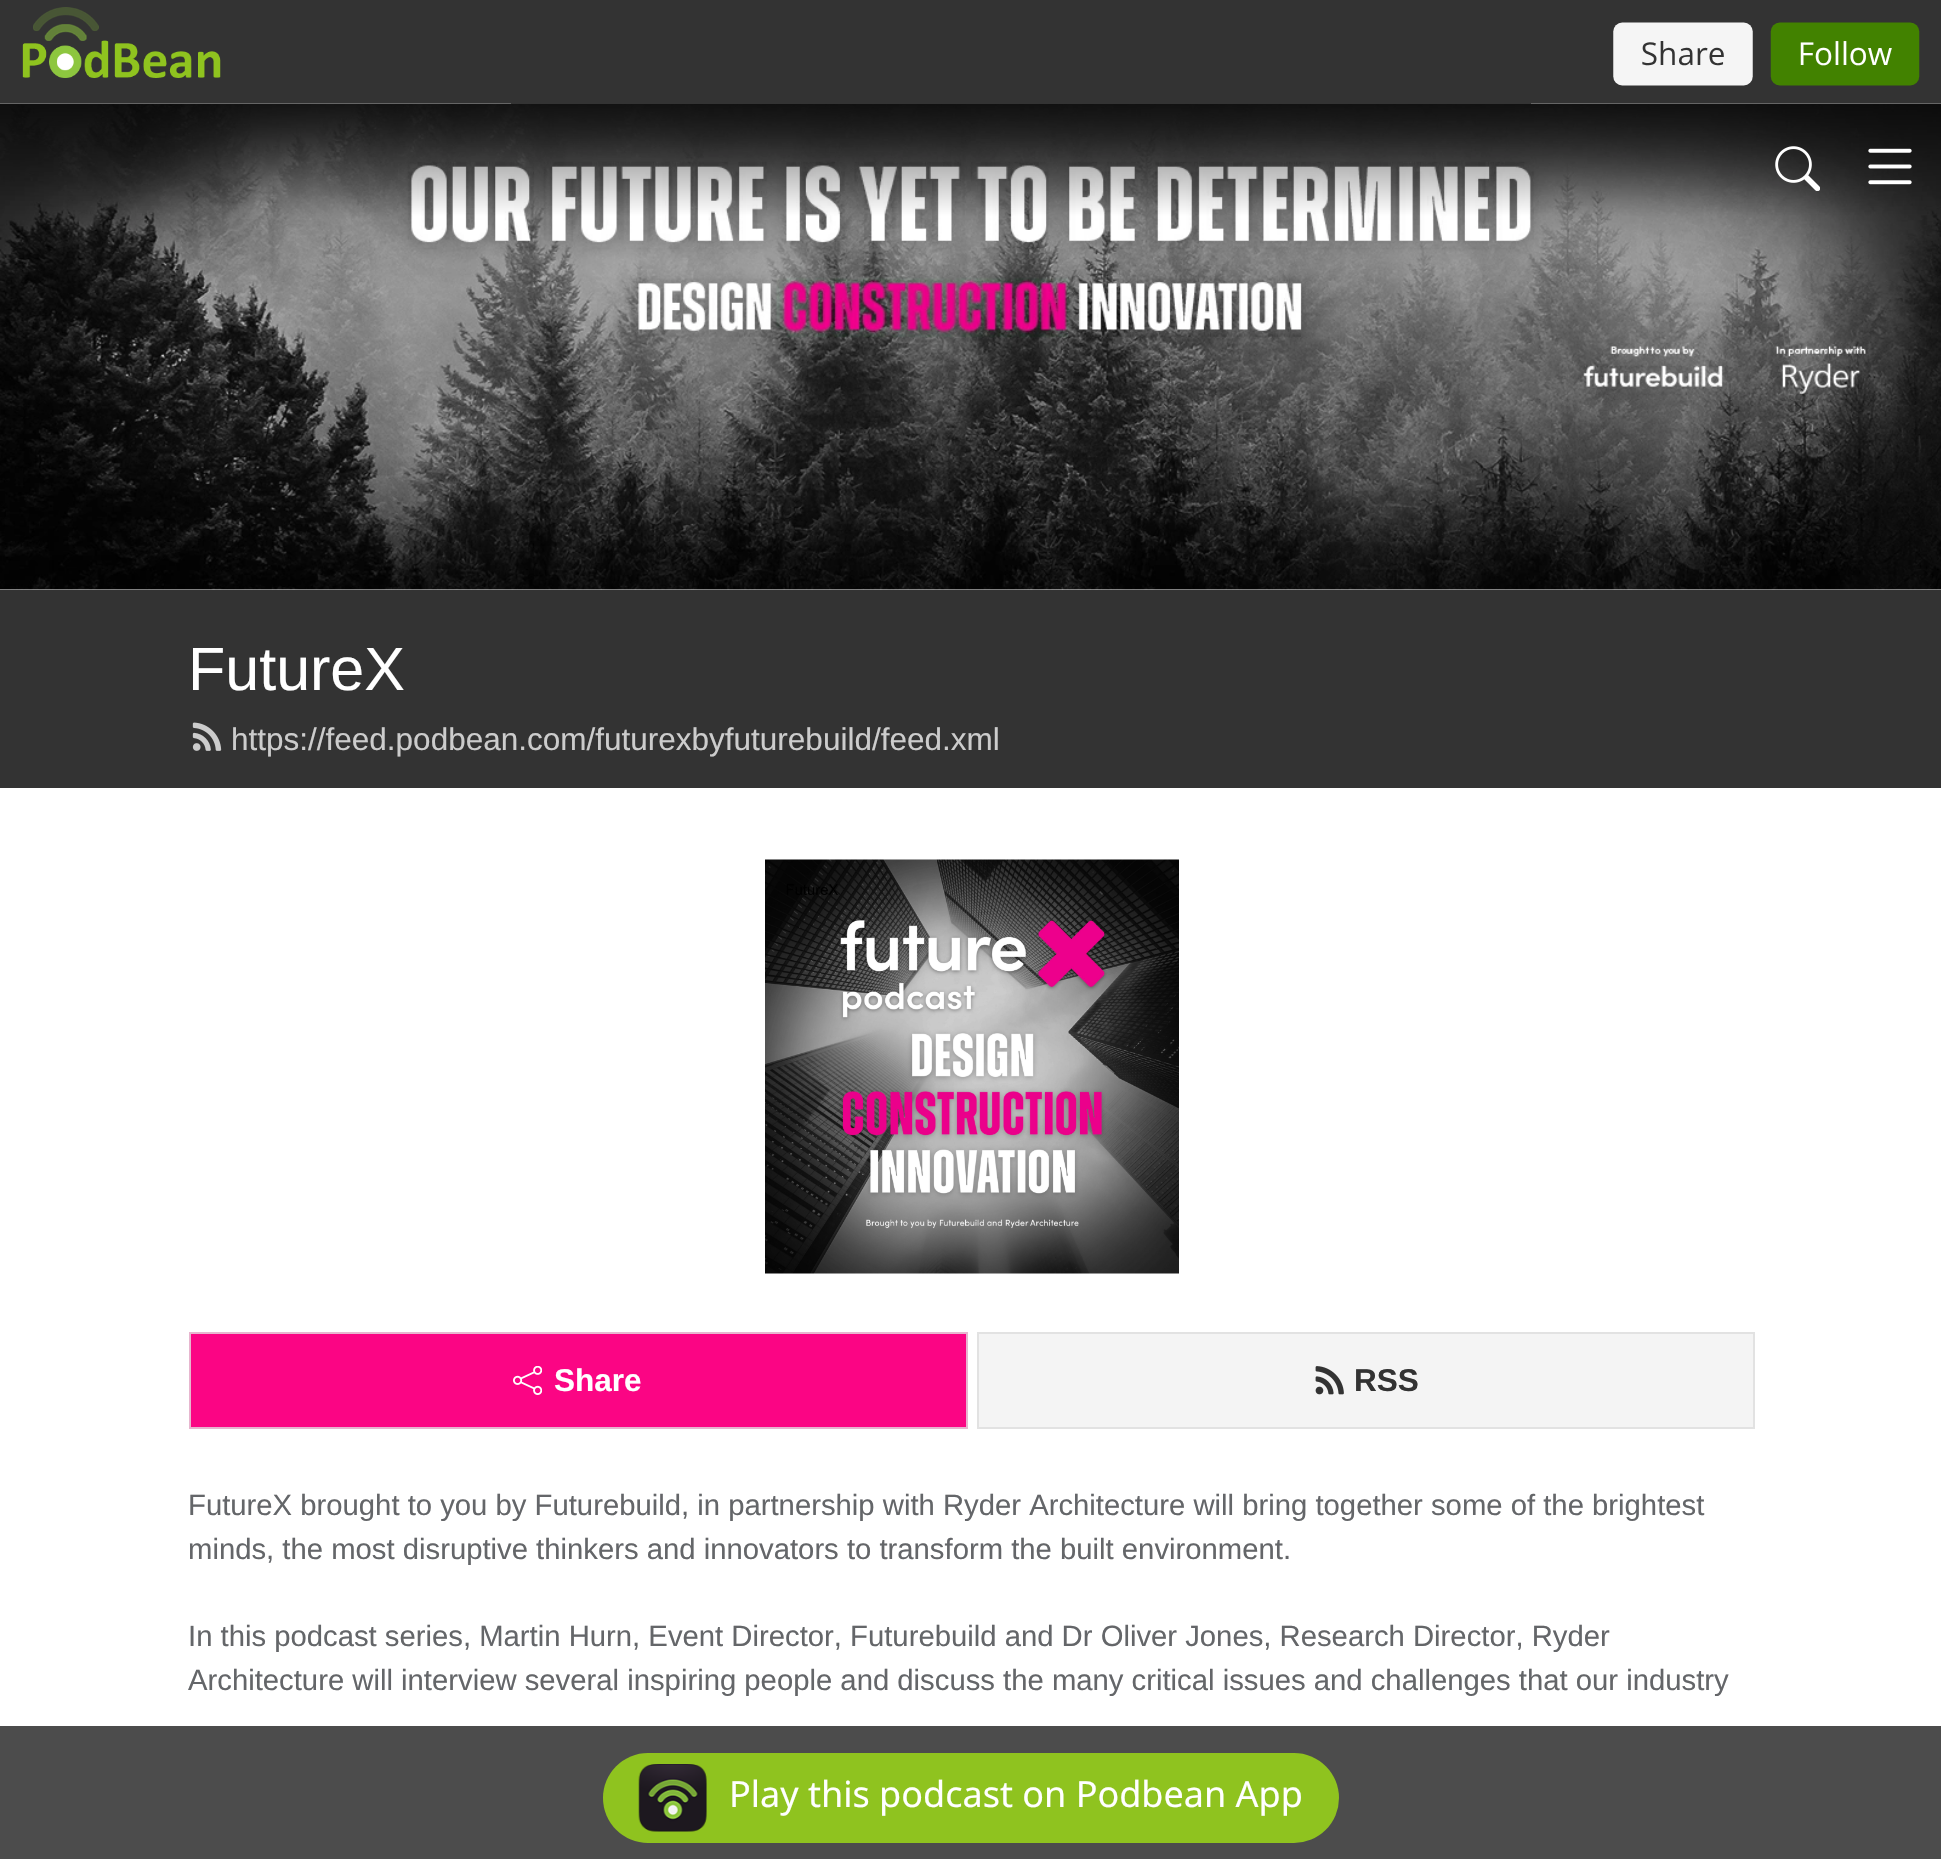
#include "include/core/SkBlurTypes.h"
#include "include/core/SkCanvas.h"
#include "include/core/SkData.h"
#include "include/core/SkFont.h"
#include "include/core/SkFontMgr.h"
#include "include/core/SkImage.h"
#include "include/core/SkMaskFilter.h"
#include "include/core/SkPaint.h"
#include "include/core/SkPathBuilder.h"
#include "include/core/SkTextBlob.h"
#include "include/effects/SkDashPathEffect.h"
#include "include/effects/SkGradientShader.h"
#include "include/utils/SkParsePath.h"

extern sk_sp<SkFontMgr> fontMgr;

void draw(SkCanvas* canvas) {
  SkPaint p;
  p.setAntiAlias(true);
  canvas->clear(SK_ColorWHITE);
  p.setColor(SkColorSetRGB(51, 51, 51));
  canvas->drawRect(SkRect::MakeLTRB(0, 0, 1941, 7), p);
  canvas->drawImageRect(SkImages::DeferredFromEncodedData(SkData::MakeFromFileName("images/1.png")), SkRect::MakeLTRB(0, 7, 1941, 104), SkSamplingOptions());
  canvas->drawImageRect(SkImages::DeferredFromEncodedData(SkData::MakeFromFileName("images/4.png")), SkRect::MakeLTRB(0, 104, 1941, 590), SkSamplingOptions());
  canvas->drawImageRect(SkImages::DeferredFromEncodedData(SkData::MakeFromFileName("images/2.png")), SkRect::MakeLTRB(1775, 146, 1820, 191), SkSamplingOptions());
  canvas->drawImageRect(SkImages::DeferredFromEncodedData(SkData::MakeFromFileName("images/3.png")), SkRect::MakeLTRB(1868, 148, 1912, 185), SkSamplingOptions());
  canvas->drawRect(SkRect::MakeLTRB(0, 590, 1941, 788), p);
  canvas->drawImageRect(SkImages::DeferredFromEncodedData(SkData::MakeFromFileName("images/5.png")), SkRect::MakeLTRB(192, 722, 222, 751), SkSamplingOptions());
  canvas->drawImageRect(SkImages::DeferredFromEncodedData(SkData::MakeFromFileName("images/6.png")), SkRect::MakeLTRB(765, 859, 1179, 1274), SkSamplingOptions());
  p.setColor(SkColorSetRGB(251, 5, 132));
  canvas->drawRect(SkRect::MakeLTRB(190, 1333, 967, 1428), p);
  p.setStyle(SkPaint::kStroke_Style);
  p.setStrokeWidth(2);
  p.setColor(SkColorSetRGB(231, 182, 207));
  canvas->drawRect(SkRect::MakeLTRB(190, 1333, 967, 1428), p);
  canvas->drawImageRect(SkImages::DeferredFromEncodedData(SkData::MakeFromFileName("images/7.png")), SkRect::MakeLTRB(513, 1366, 542, 1395), SkSamplingOptions());
  p.setStyle(SkPaint::kFill_Style);
  p.setColor(SkColorSetRGB(244, 244, 244));
  canvas->drawRect(SkRect::MakeLTRB(978, 1333, 1754, 1428), p);
  p.setStyle(SkPaint::kStroke_Style);
  p.setColor(SkColorSetRGB(226, 226, 226));
  canvas->drawRect(SkRect::MakeLTRB(978, 1333, 1754, 1428), p);
  canvas->drawImageRect(SkImages::DeferredFromEncodedData(SkData::MakeFromFileName("images/8.png")), SkRect::MakeLTRB(1315, 1366, 1344, 1395), SkSamplingOptions());
  p.setStyle(SkPaint::kFill_Style);
  p.setColor(SkColorSetARGB(179, 0, 0, 0));
  canvas->drawRect(SkRect::MakeLTRB(0, 1726, 1941, 1859), p);
  p.setColor(SkColorSetRGB(143, 195, 31));
  canvas->drawRoundRect(SkRect::MakeLTRB(603, 1753, 1339, 1843), 45, 45, p);
  canvas->drawImageRect(SkImages::DeferredFromEncodedData(SkData::MakeFromFileName("images/9.png")), SkRect::MakeLTRB(638, 1764, 707, 1832), SkSamplingOptions());
  SkFont font1(fontMgr->matchFamilyStyle("Liberation Sans", SkFontStyle::Normal()), 61);
  font1.setSubpixel(true);
  p.setColor(SK_ColorWHITE);
  canvas->drawString("FutureX", 188, 690, font1, p);
  SkFont font2(fontMgr->matchFamilyStyle("Liberation Sans", SkFontStyle::Normal()), 31.5f);
  font2.setSubpixel(true);
  p.setColor(SkColorSetRGB(204, 204, 204));
  canvas->drawString("https://feed.podbean.com/futurexbyfuturebuild/feed.xml", 231, 750, font2, p);
  SkFont font3(fontMgr->matchFamilyStyle("Liberation Sans", SkFontStyle::Bold()), 31.5f);
  font3.setSubpixel(true);
  p.setColor(SK_ColorWHITE);
  canvas->drawString("Share", 554, 1391, font3, p);
  p.setColor(SkColorSetRGB(51, 51, 51));
  canvas->drawString("RSS", 1354, 1391, font3, p);
  SkFont font4(fontMgr->matchFamilyStyle("Liberation Sans", SkFontStyle::Normal()), 29.27f);
  font4.setSubpixel(true);
  p.setColor(SkColorSetRGB(100, 102, 105));
  canvas->drawString("FutureX brought to you by Futurebuild, in partnership with Ryder Architecture will bring together some of the brightest", 188, 1515, font4, p);
  canvas->drawString("minds, the most disruptive thinkers and innovators to transform the built environment.", 188, 1559, font4, p);
  canvas->drawString("In this podcast series, Martin Hurn, Event Director, Futurebuild and Dr Oliver Jones, Research Director, Ryder", 188, 1646, font4, p);
  canvas->drawString("Architecture will interview several inspiring people and discuss the many critical issues and challenges that our industry", 188, 1690, font4, p);
  SkFont font5(fontMgr->matchFamilyStyle("Noto Sans", SkFontStyle::Normal()), 36);
  font5.setSubpixel(true);
  p.setColor(SK_ColorWHITE);
  canvas->drawString("Play this podcast on Podbean App", 729, 1807, font5, p);
}
